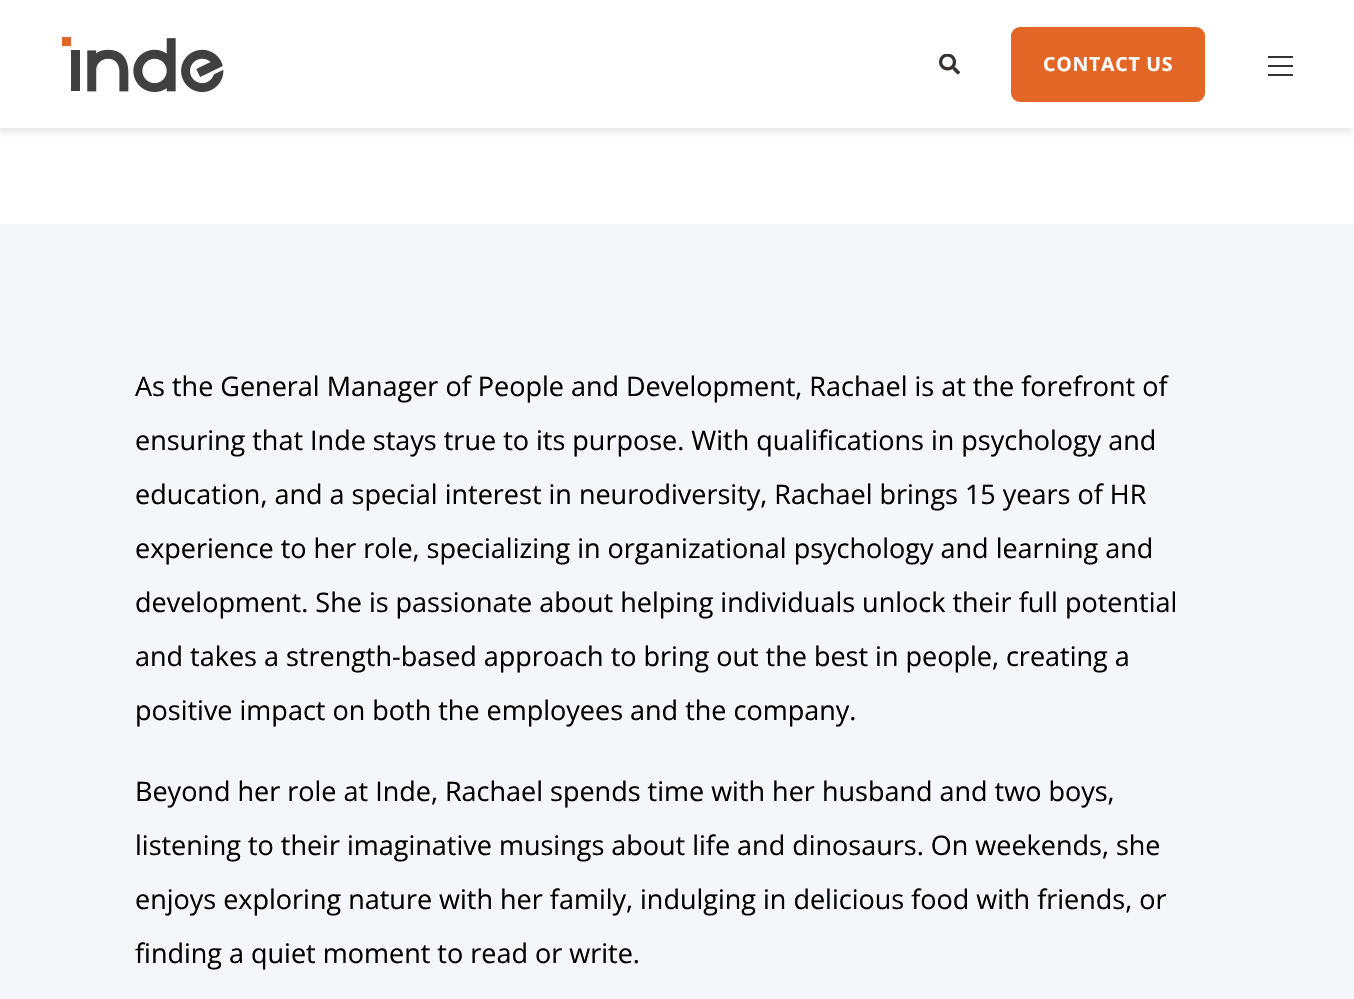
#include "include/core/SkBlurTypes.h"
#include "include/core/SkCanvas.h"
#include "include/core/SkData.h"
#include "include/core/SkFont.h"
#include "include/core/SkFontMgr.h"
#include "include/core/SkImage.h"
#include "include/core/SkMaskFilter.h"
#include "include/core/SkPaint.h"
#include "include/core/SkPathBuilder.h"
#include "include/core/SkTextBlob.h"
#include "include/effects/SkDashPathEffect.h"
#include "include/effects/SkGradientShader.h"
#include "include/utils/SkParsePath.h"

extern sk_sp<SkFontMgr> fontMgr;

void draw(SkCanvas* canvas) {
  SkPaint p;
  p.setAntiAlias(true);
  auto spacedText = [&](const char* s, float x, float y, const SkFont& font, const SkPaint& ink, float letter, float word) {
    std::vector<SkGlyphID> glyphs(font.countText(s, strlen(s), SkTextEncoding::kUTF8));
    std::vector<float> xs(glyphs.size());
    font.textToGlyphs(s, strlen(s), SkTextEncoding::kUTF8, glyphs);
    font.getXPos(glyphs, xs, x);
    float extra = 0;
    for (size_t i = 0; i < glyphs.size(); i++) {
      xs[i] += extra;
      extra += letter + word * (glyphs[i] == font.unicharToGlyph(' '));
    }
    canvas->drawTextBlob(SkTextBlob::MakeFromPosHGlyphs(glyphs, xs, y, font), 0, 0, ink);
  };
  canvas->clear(SK_ColorWHITE);
  p.setColor(SkColorSetARGB(26, 0, 0, 0));
  p.setMaskFilter(SkMaskFilter::MakeBlur(kNormal_SkBlurStyle, 4));
  canvas->drawRect(SkRect::MakeLTRB(-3, 5, 1352, 132), p);
  p.setMaskFilter(nullptr);
  p.setColor(SK_ColorWHITE);
  canvas->drawRect(SkRect::MakeLTRB(0, 0, 1354, 128), p);
  canvas->drawImageRect(SkImages::DeferredFromEncodedData(SkData::MakeFromFileName("images/1.png")), SkRect::MakeLTRB(62, 37, 224, 93), SkSamplingOptions());
  canvas->drawImageRect(SkImages::DeferredFromEncodedData(SkData::MakeFromFileName("images/2.png")), SkRect::MakeLTRB(939, 54, 960, 75), SkSamplingOptions());
  p.setColor(SkColorSetRGB(228, 102, 38));
  canvas->drawRoundRect(SkRect::MakeLTRB(1011, 27, 1205, 102), 9, 9, p);
  p.setColor(SkColorSetRGB(54, 50, 50));
  canvas->drawRect(SkRect::MakeLTRB(1268, 56, 1293, 58), p);
  canvas->drawRect(SkRect::MakeLTRB(1268, 65, 1293, 67), p);
  canvas->drawRect(SkRect::MakeLTRB(1268, 74, 1293, 76), p);
  p.setColor(SkColorSetRGB(244, 246, 250));
  canvas->drawRect(SkRect::MakeLTRB(0, 224, 1354, 999), p);
  SkFont font1(fontMgr->matchFamilyStyle("Open Sans", SkFontStyle::Bold()), 19.5f);
  font1.setSubpixel(true);
  p.setColor(SK_ColorWHITE);
  spacedText("CONTACT US", 1043, 71, font1, p, 0.75f, 0);
  SkFont font2(fontMgr->matchFamilyStyle("Open Sans", SkFontStyle::Normal()), 27);
  font2.setSubpixel(true);
  p.setColor(SK_ColorBLACK);
  canvas->drawString("As the General Manager of People and Development, Rachael is at the forefront of", 135, 396, font2, p);
  canvas->drawString("ensuring that Inde stays true to its purpose. With qualifications in psychology and", 135, 450, font2, p);
  canvas->drawString("education, and a special interest in neurodiversity, Rachael brings 15 years of HR", 135, 504, font2, p);
  canvas->drawString("experience to her role, specializing in organizational psychology and learning and", 135, 558, font2, p);
  canvas->drawString("development. She is passionate about helping individuals unlock their full potential", 135, 612, font2, p);
  canvas->drawString("and takes a strength-based approach to bring out the best in people, creating a", 135, 666, font2, p);
  canvas->drawString("positive impact on both the employees and the company.", 135, 720, font2, p);
  canvas->drawString("Beyond her role at Inde, Rachael spends time with her husband and two boys,", 135, 801, font2, p);
  canvas->drawString("listening to their imaginative musings about life and dinosaurs. On weekends, she", 135, 855, font2, p);
  canvas->drawString("enjoys exploring nature with her family, indulging in delicious food with friends, or", 135, 909, font2, p);
  canvas->drawString("finding a quiet moment to read or write.", 135, 963, font2, p);
}
